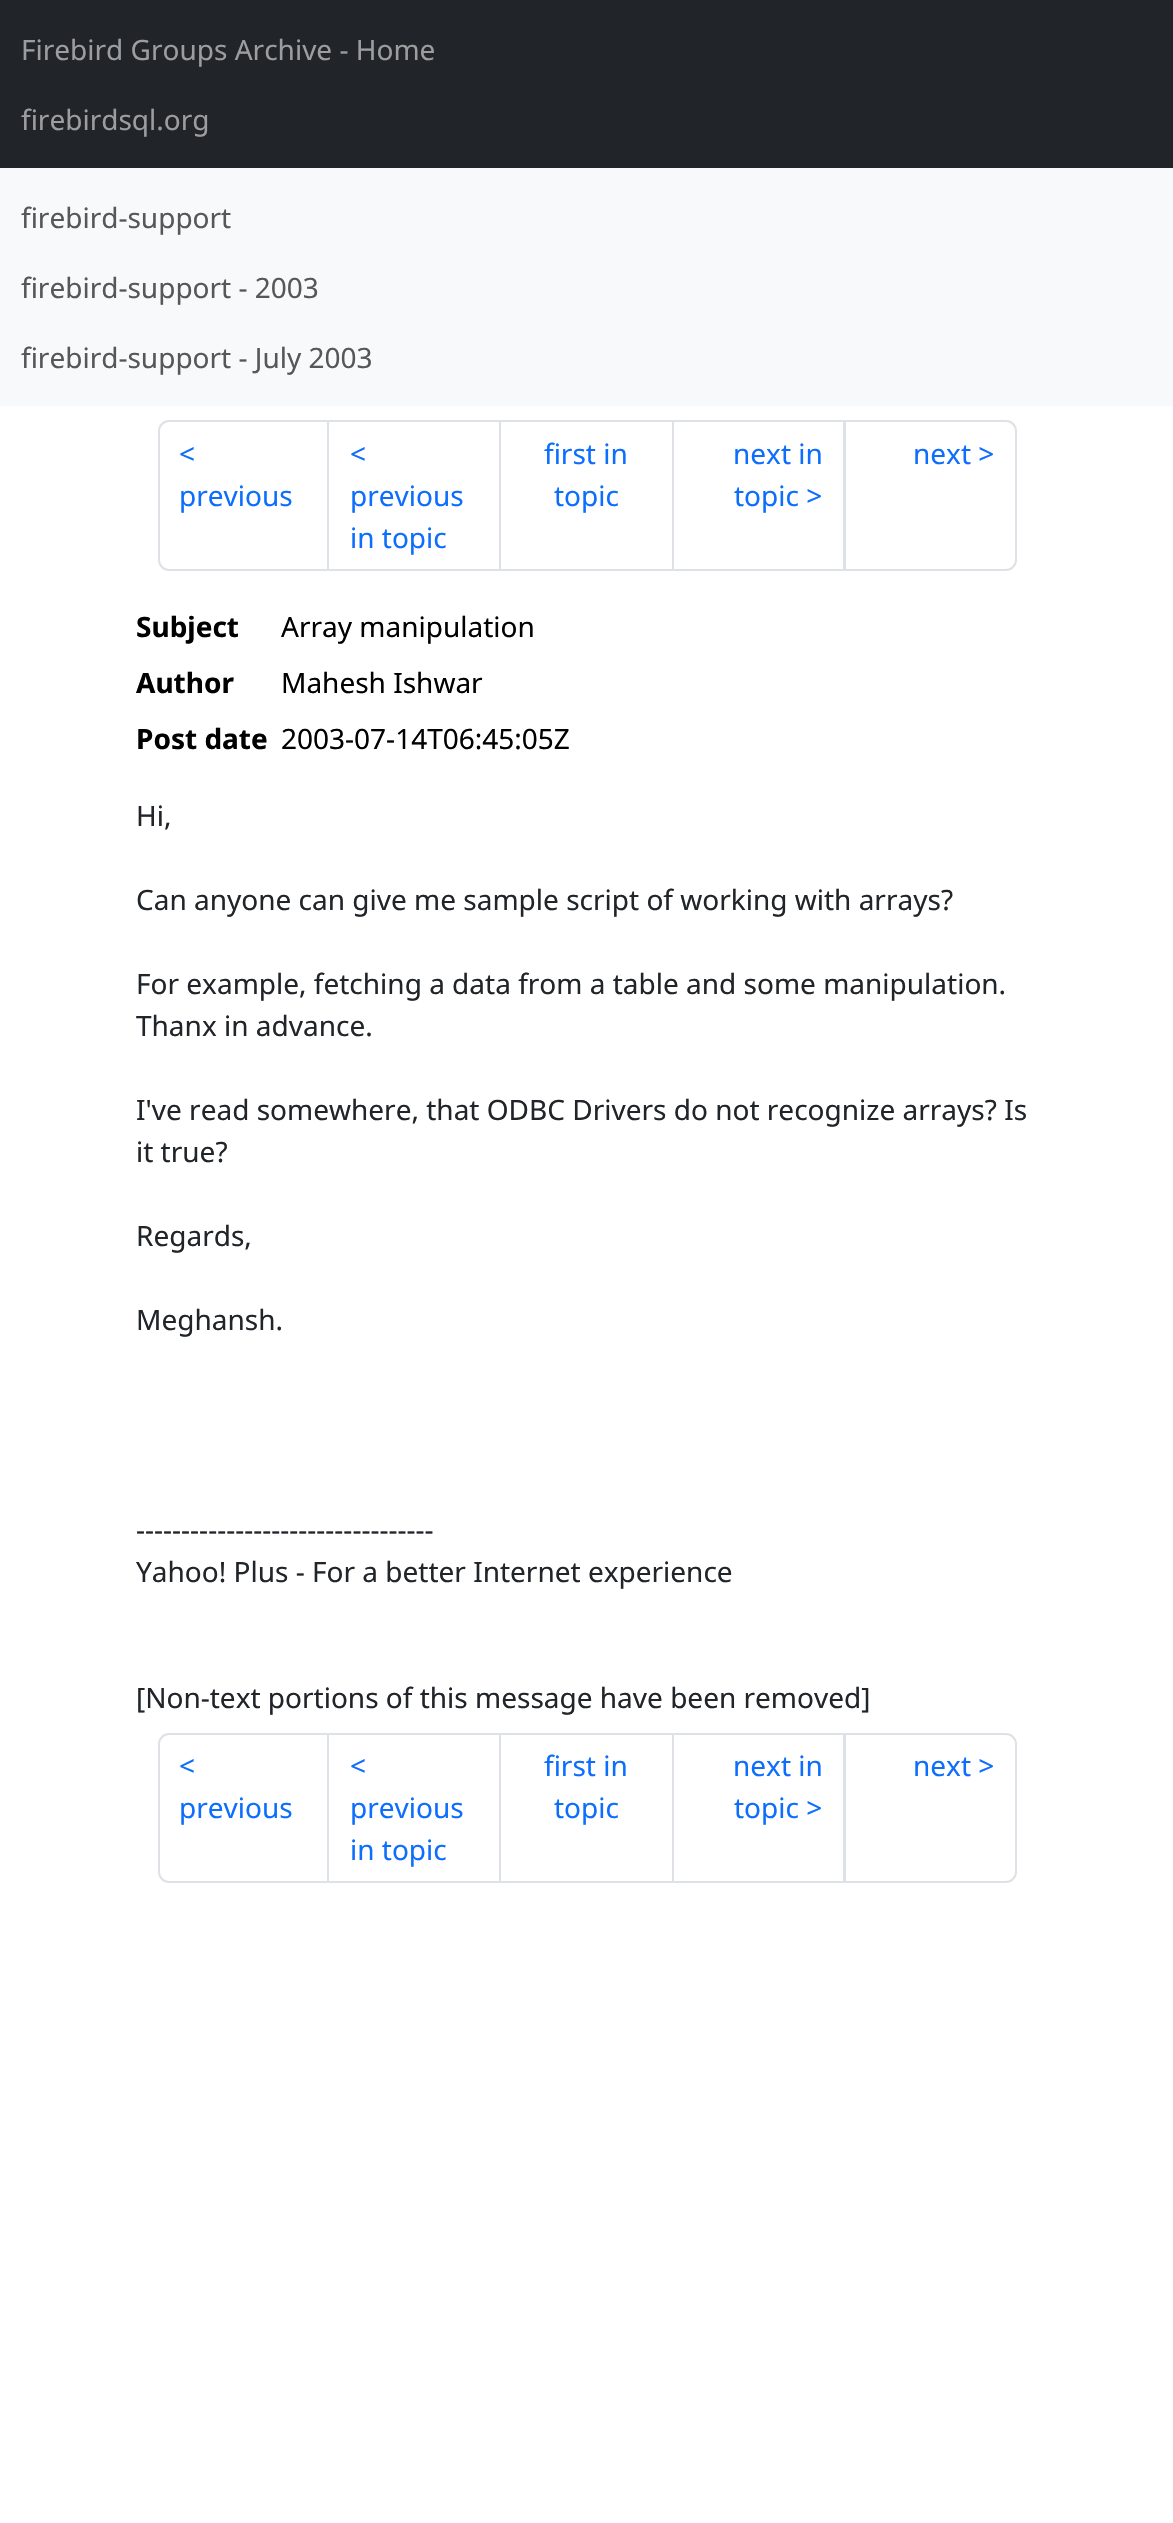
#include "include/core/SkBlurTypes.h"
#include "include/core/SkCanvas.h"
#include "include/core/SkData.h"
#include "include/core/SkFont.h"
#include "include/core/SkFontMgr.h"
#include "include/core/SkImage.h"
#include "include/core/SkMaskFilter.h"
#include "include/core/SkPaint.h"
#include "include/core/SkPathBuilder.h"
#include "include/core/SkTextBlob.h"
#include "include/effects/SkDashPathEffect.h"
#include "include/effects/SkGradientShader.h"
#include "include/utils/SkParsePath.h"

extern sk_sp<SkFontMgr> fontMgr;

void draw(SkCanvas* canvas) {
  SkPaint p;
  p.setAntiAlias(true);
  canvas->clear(SK_ColorWHITE);
  p.setColor(SkColorSetRGB(33, 37, 41));
  canvas->drawRect(SkRect::MakeLTRB(0, 0, 1173, 168), p);
  p.setColor(SkColorSetRGB(248, 249, 250));
  canvas->drawRect(SkRect::MakeLTRB(0, 168, 1173, 406), p);
  p.setStyle(SkPaint::kStroke_Style);
  p.setStrokeWidth(2);
  p.setColor(SkColorSetRGB(222, 226, 230));
  canvas->drawPath(SkPathBuilder().moveTo(169, 421).lineTo(328, 421).lineTo(328, 570).lineTo(169, 570).cubicTo(163.5f, 570, 159, 565.5f, 159, 560).lineTo(159, 431).cubicTo(159, 425.5f, 163.5f, 421, 169, 421).close().detach(), p);
  canvas->drawRect(SkRect::MakeLTRB(328, 421, 500, 570), p);
  canvas->drawRect(SkRect::MakeLTRB(500, 421, 673, 570), p);
  canvas->drawRect(SkRect::MakeLTRB(673, 421, 844, 570), p);
  p.setStyle(SkPaint::kFill_Style);
  p.setColor(SK_ColorWHITE);
  canvas->drawPath(SkPathBuilder().moveTo(845, 421).lineTo(1006, 421).cubicTo(1011.5f, 421, 1016, 425.5f, 1016, 431).lineTo(1016, 560).cubicTo(1016, 565.5f, 1011.5f, 570, 1006, 570).lineTo(845, 570).close().detach(), p);
  p.setStyle(SkPaint::kStroke_Style);
  p.setColor(SkColorSetRGB(222, 226, 230));
  canvas->drawPath(SkPathBuilder().moveTo(845, 421).lineTo(1006, 421).cubicTo(1011.5f, 421, 1016, 425.5f, 1016, 431).lineTo(1016, 560).cubicTo(1016, 565.5f, 1011.5f, 570, 1006, 570).lineTo(845, 570).close().detach(), p);
  canvas->drawPath(SkPathBuilder().moveTo(169, 1734).lineTo(328, 1734).lineTo(328, 1882).lineTo(169, 1882).cubicTo(163.5f, 1882, 159, 1877.5f, 159, 1872).lineTo(159, 1744).cubicTo(159, 1738.5f, 163.5f, 1734, 169, 1734).close().detach(), p);
  canvas->drawRect(SkRect::MakeLTRB(328, 1734, 500, 1882), p);
  canvas->drawRect(SkRect::MakeLTRB(500, 1734, 673, 1882), p);
  canvas->drawRect(SkRect::MakeLTRB(673, 1734, 844, 1882), p);
  p.setStyle(SkPaint::kFill_Style);
  p.setColor(SK_ColorWHITE);
  canvas->drawPath(SkPathBuilder().moveTo(845, 1734).lineTo(1006, 1734).cubicTo(1011.5f, 1734, 1016, 1738.5f, 1016, 1744).lineTo(1016, 1872).cubicTo(1016, 1877.5f, 1011.5f, 1882, 1006, 1882).lineTo(845, 1882).close().detach(), p);
  p.setStyle(SkPaint::kStroke_Style);
  p.setColor(SkColorSetRGB(222, 226, 230));
  canvas->drawPath(SkPathBuilder().moveTo(845, 1734).lineTo(1006, 1734).cubicTo(1011.5f, 1734, 1016, 1738.5f, 1016, 1744).lineTo(1016, 1872).cubicTo(1016, 1877.5f, 1011.5f, 1882, 1006, 1882).lineTo(845, 1882).close().detach(), p);
  SkFont font1(fontMgr->matchFamilyStyle("Noto Sans", SkFontStyle::Normal()), 28);
  font1.setSubpixel(true);
  p.setStyle(SkPaint::kFill_Style);
  p.setColor(SkColorSetRGB(155, 157, 159));
  canvas->drawString("Firebird Groups Archive - Home", 21, 60, font1, p);
  canvas->drawString("firebirdsql.org", 21, 130, font1, p);
  p.setColor(SkColorSetRGB(87, 87, 88));
  canvas->drawString("firebird-support", 21, 228, font1, p);
  canvas->drawString("firebird-support - 2003", 21, 298, font1, p);
  canvas->drawString("firebird-support - July 2003", 21, 368, font1, p);
  p.setColor(SkColorSetRGB(13, 110, 253));
  canvas->drawString("<", 179, 464, font1, p);
  canvas->drawString("previous", 179, 506, font1, p);
  canvas->drawString("<", 350, 464, font1, p);
  canvas->drawString("previous", 350, 506, font1, p);
  canvas->drawString("in topic", 350, 548, font1, p);
  canvas->drawString("first in", 544, 464, font1, p);
  canvas->drawString("topic", 554, 506, font1, p);
  canvas->drawString("next in", 733, 464, font1, p);
  canvas->drawString("topic >", 734, 506, font1, p);
  canvas->drawString("next >", 913, 464, font1, p);
  SkFont font2(fontMgr->matchFamilyStyle("Noto Sans", SkFontStyle::Bold()), 28);
  font2.setSubpixel(true);
  p.setColor(SK_ColorBLACK);
  canvas->drawString("Subject", 136, 637, font2, p);
  canvas->drawString("Array manipulation", 281, 637, font1, p);
  canvas->drawString("Author", 136, 693, font2, p);
  canvas->drawString("Mahesh Ishwar", 281, 693, font1, p);
  canvas->drawString("Post date", 136, 749, font2, p);
  canvas->drawString("2003-07-14T06:45:05Z", 281, 749, font1, p);
  p.setColor(SkColorSetRGB(33, 37, 41));
  canvas->drawString("Hi,", 136, 826, font1, p);
  canvas->drawString("Can anyone can give me sample script of working with arrays?", 136, 910, font1, p);
  canvas->drawString("For example, fetching a data from a table and some manipulation.", 136, 994, font1, p);
  canvas->drawString("Thanx in advance.", 136, 1036, font1, p);
  canvas->drawString("I've read somewhere, that ODBC Drivers do not recognize arrays? Is", 136, 1120, font1, p);
  canvas->drawString("it true?", 136, 1162, font1, p);
  canvas->drawString("Regards,", 136, 1246, font1, p);
  canvas->drawString("Meghansh.", 136, 1330, font1, p);
  canvas->drawString("---------------------------------", 136, 1540, font1, p);
  canvas->drawString("Yahoo! Plus - For a better Internet experience", 136, 1582, font1, p);
  canvas->drawString("[Non-text portions of this message have been removed]", 136, 1708, font1, p);
  p.setColor(SkColorSetRGB(13, 110, 253));
  canvas->drawString("<", 179, 1776, font1, p);
  canvas->drawString("previous", 179, 1818, font1, p);
  canvas->drawString("<", 350, 1776, font1, p);
  canvas->drawString("previous", 350, 1818, font1, p);
  canvas->drawString("in topic", 350, 1860, font1, p);
  canvas->drawString("first in", 544, 1776, font1, p);
  canvas->drawString("topic", 554, 1818, font1, p);
  canvas->drawString("next in", 733, 1776, font1, p);
  canvas->drawString("topic >", 734, 1818, font1, p);
  canvas->drawString("next >", 913, 1776, font1, p);
}
